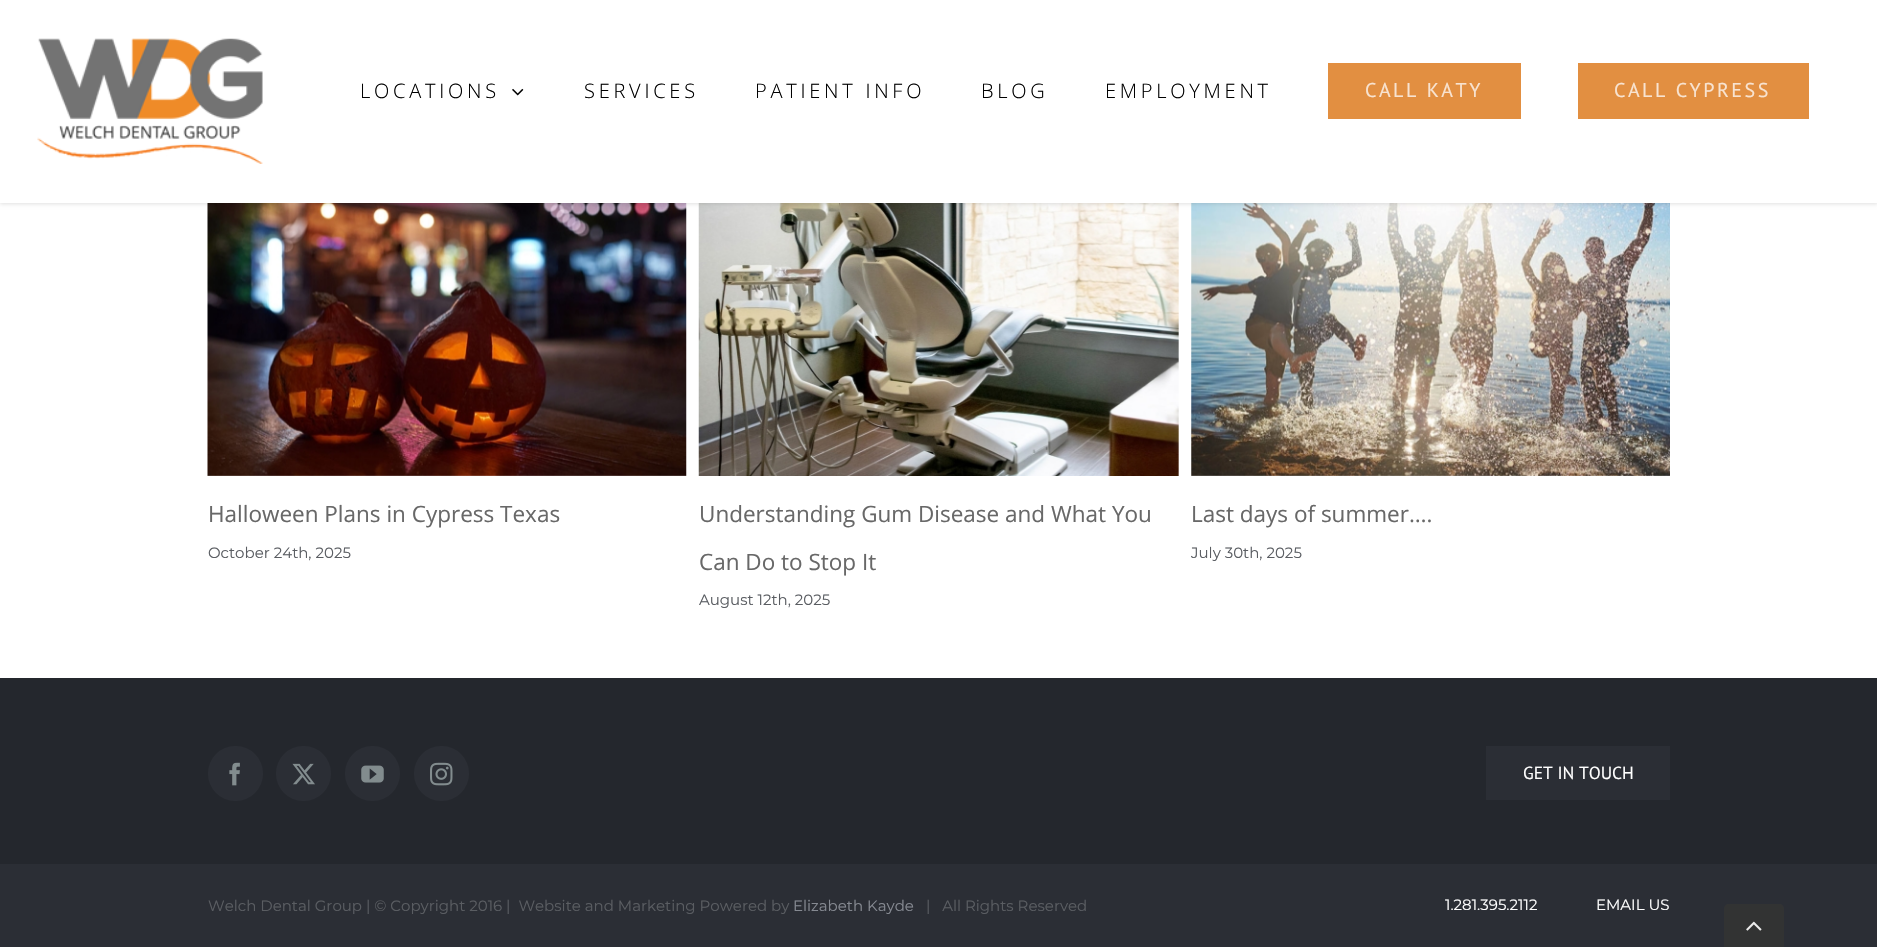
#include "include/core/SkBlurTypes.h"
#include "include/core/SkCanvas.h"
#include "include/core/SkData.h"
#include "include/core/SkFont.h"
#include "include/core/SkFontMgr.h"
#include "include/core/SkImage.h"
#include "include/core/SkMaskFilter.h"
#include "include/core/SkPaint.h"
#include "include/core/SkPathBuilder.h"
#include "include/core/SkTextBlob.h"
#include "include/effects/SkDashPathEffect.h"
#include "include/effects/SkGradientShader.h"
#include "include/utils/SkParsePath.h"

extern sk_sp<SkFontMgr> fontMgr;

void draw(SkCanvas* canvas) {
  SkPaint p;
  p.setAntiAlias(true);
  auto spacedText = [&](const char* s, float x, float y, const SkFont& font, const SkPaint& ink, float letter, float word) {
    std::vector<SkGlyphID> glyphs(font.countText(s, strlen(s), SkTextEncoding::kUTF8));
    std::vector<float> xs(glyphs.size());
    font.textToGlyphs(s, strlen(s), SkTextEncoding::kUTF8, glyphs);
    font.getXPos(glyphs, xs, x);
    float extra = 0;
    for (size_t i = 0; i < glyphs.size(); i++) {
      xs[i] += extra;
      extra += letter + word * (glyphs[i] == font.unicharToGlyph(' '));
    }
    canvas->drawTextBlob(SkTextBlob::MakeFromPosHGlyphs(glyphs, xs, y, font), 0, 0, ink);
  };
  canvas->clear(SK_ColorWHITE);
  canvas->drawImageRect(SkImages::DeferredFromEncodedData(SkData::MakeFromFileName("images/3.png")), SkRect::MakeLTRB(207, 203, 687, 476), SkSamplingOptions());
  canvas->drawImageRect(SkImages::DeferredFromEncodedData(SkData::MakeFromFileName("images/4.png")), SkRect::MakeLTRB(698, 203, 1179, 476), SkSamplingOptions());
  canvas->drawImageRect(SkImages::DeferredFromEncodedData(SkData::MakeFromFileName("images/5.png")), SkRect::MakeLTRB(1191, 203, 1670, 476), SkSamplingOptions());
  p.setColor(SkColorSetARGB(31, 0, 0, 0));
  p.setMaskFilter(SkMaskFilter::MakeBlur(kNormal_SkBlurStyle, 2));
  canvas->drawRect(SkRect::MakeLTRB(0, 1, 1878, 204), p);
  p.setMaskFilter(nullptr);
  p.setColor(SK_ColorWHITE);
  canvas->drawRect(SkRect::MakeLTRB(0, 0, 1877, 203), p);
  canvas->drawImageRect(SkImages::DeferredFromEncodedData(SkData::MakeFromFileName("images/1.png")), SkRect::MakeLTRB(37, 38, 263, 164), SkSamplingOptions());
  canvas->drawImageRect(SkImages::DeferredFromEncodedData(SkData::MakeFromFileName("images/2.png")), SkRect::MakeLTRB(512, 88, 524, 96), SkSamplingOptions());
  p.setColor(SkColorSetRGB(226, 143, 65));
  canvas->drawRect(SkRect::MakeLTRB(1328, 63, 1521, 119), p);
  canvas->drawRect(SkRect::MakeLTRB(1578, 63, 1809, 119), p);
  p.setColor(SkColorSetRGB(36, 39, 45));
  canvas->drawRect(SkRect::MakeLTRB(0, 678, 1877, 864), p);
  p.setColor(SkColorSetRGB(43, 46, 53));
  canvas->drawCircle(235.5f, 773.5f, 27.5f, p);
  canvas->drawImageRect(SkImages::DeferredFromEncodedData(SkData::MakeFromFileName("images/6.png")), SkRect::MakeLTRB(229, 762, 240, 786), SkSamplingOptions());
  canvas->drawCircle(303.5f, 773.5f, 27.5f, p);
  canvas->drawImageRect(SkImages::DeferredFromEncodedData(SkData::MakeFromFileName("images/7.png")), SkRect::MakeLTRB(292, 763, 315, 785), SkSamplingOptions());
  canvas->drawCircle(372.5f, 773.5f, 27.5f, p);
  canvas->drawImageRect(SkImages::DeferredFromEncodedData(SkData::MakeFromFileName("images/8.png")), SkRect::MakeLTRB(361, 765, 384, 783), SkSamplingOptions());
  canvas->drawCircle(441.5f, 773.5f, 27.5f, p);
  canvas->drawImageRect(SkImages::DeferredFromEncodedData(SkData::MakeFromFileName("images/9.png")), SkRect::MakeLTRB(430, 762, 453, 786), SkSamplingOptions());
  canvas->drawRect(SkRect::MakeLTRB(1486, 746, 1670, 800), p);
  canvas->drawRect(SkRect::MakeLTRB(0, 864, 1877, 947), p);
  p.setColor(SkColorSetRGB(50, 51, 51));
  canvas->drawPath(SkPathBuilder().moveTo(1729, 904).lineTo(1779, 904).cubicTo(1782, 904, 1784, 906, 1784, 909).lineTo(1784, 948).lineTo(1724, 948).lineTo(1724, 909).cubicTo(1724, 906, 1726, 904, 1729, 904).close().detach(), p);
  canvas->drawImageRect(SkImages::DeferredFromEncodedData(SkData::MakeFromFileName("images/10.png")), SkRect::MakeLTRB(1746, 921, 1762, 931), SkSamplingOptions());
  SkFont font1(fontMgr->matchFamilyStyle("Open Sans", SkFontStyle(300, SkFontStyle::kNormal_Width, SkFontStyle::kUpright_Slant)), 20);
  font1.setSubpixel(true);
  p.setColor(SK_ColorBLACK);
  spacedText("LOCATIONS", 360, 98, font1, p, 3.75f, 0);
  spacedText("SERVICES", 584, 98, font1, p, 3.75f, 0);
  spacedText("PATIENT INFO", 755, 98, font1, p, 3.75f, 0);
  spacedText("BLOG", 981, 98, font1, p, 3.75f, 0);
  spacedText("EMPLOYMENT", 1105, 98, font1, p, 3.75f, 0);
  SkFont font2(fontMgr->matchFamilyStyle("PT Sans", SkFontStyle::Normal()), 20);
  font2.setSubpixel(true);
  p.setColor(SkColorSetRGB(248, 227, 208));
  spacedText("CALL KATY", 1365, 97, font2, p, 2.5f, 0);
  spacedText("CALL CYPRESS", 1614, 97, font2, p, 2.5f, 0);
  SkFont font3(fontMgr->matchFamilyStyle("Open Sans", SkFontStyle::Normal()), 22.5f);
  font3.setSubpixel(true);
  p.setColor(SkColorSetRGB(104, 104, 104));
  canvas->drawString("Halloween Plans in Cypress Texas", 208, 522, font3, p);
  SkFont font4(fontMgr->matchFamilyStyle("Montserrat", SkFontStyle::Normal()), 15);
  font4.setSubpixel(true);
  p.setColor(SkColorSetRGB(90, 93, 98));
  canvas->drawString("October 24th, 2025", 208, 558, font4, p);
  p.setColor(SkColorSetRGB(104, 104, 104));
  canvas->drawString("Understanding Gum Disease and What You", 699, 522, font3, p);
  canvas->drawString("Can Do to Stop It", 699, 570, font3, p);
  p.setColor(SkColorSetRGB(90, 93, 98));
  canvas->drawString("August 12th, 2025", 699, 605, font4, p);
  p.setColor(SkColorSetRGB(104, 104, 104));
  canvas->drawString("Last days of summer….", 1191, 522, font3, p);
  p.setColor(SkColorSetRGB(90, 93, 98));
  canvas->drawString("July 30th, 2025", 1191, 558, font4, p);
  SkFont font5(fontMgr->matchFamilyStyle("PT Sans", SkFontStyle::Normal()), 17.5f);
  font5.setSubpixel(true);
  p.setColor(SK_ColorWHITE);
  canvas->drawString("GET IN TOUCH", 1523, 779, font5, p);
  p.setColor(SkColorSetRGB(90, 93, 98));
  canvas->drawString("Welch Dental Group | © Copyright 2016 |  Website and Marketing Powered by", 208, 911, font4, p);
  p.setColor(SkColorSetRGB(134, 138, 146));
  canvas->drawString("Elizabeth Kayde", 793, 911, font4, p);
  p.setColor(SkColorSetRGB(90, 93, 98));
  canvas->drawString("|   All Rights Reserved", 926, 911, font4, p);
  p.setColor(SK_ColorWHITE);
  canvas->drawString("1.281.395.2112", 1445, 910, font4, p);
  canvas->drawString("EMAIL US", 1596, 910, font4, p);
}
